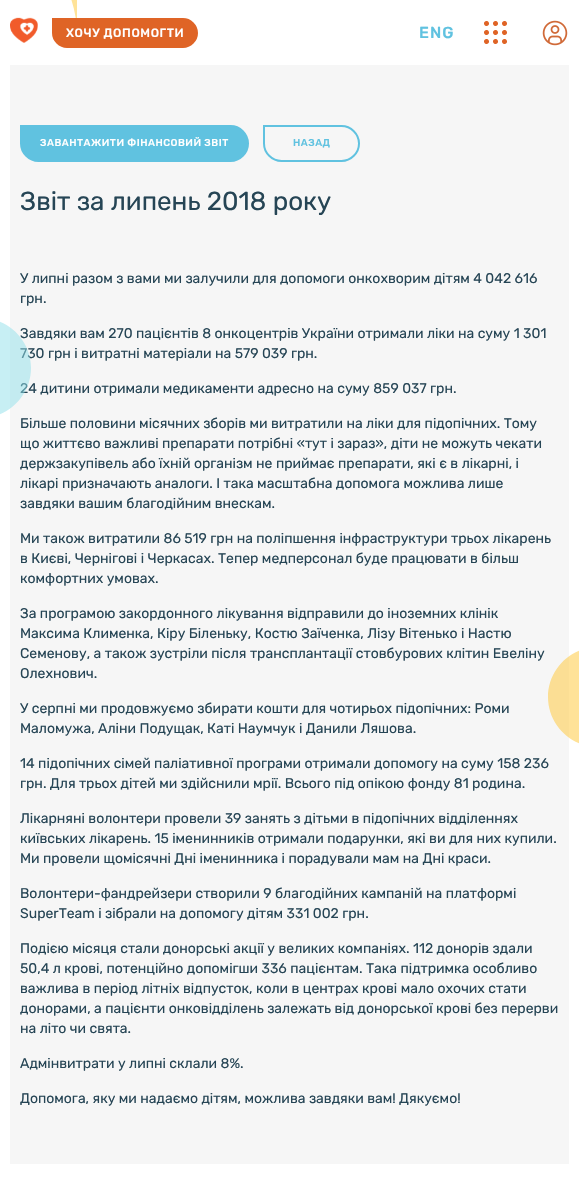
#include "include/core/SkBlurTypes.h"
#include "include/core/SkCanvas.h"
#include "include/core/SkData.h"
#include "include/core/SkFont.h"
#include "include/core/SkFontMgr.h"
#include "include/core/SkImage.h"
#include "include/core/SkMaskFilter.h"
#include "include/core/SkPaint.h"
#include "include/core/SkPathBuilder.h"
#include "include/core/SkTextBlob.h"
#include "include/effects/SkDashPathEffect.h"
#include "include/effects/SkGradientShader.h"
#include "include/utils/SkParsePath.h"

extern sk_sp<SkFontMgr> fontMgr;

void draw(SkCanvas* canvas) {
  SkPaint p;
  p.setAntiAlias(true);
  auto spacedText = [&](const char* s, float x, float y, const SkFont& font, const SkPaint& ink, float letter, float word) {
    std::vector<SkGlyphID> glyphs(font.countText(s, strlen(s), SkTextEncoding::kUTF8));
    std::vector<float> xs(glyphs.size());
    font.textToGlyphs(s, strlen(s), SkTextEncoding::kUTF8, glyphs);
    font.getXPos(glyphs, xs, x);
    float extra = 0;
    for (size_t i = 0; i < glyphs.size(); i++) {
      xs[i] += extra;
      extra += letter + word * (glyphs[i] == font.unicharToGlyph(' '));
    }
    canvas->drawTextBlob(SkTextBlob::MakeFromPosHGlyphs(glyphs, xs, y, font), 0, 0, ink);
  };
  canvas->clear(SK_ColorWHITE);
  p.setColor(SkColorSetRGB(255, 227, 152));
  canvas->drawPath(SkPathBuilder().moveTo(0, -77).lineTo(-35, -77).cubicTo(27, -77, 77, -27, 77, 35).lineTo(77, 0).lineTo(0, 0).close().detach(), p);
  canvas->drawImageRect(SkImages::DeferredFromEncodedData(SkData::MakeFromFileName("images/1.png")), SkRect::MakeLTRB(10, 17, 38, 43), SkSamplingOptions());
  p.setColor(SkColorSetRGB(223, 100, 38));
  canvas->drawPath(SkPathBuilder().moveTo(53, 19).lineTo(183, 19).cubicTo(190.5f, 19, 197, 25.5f, 197, 33).cubicTo(197, 40.5f, 190.5f, 47, 183, 47).lineTo(67, 47).cubicTo(59.5f, 47, 53, 40.5f, 53, 33).close().detach(), p);
  p.setStyle(SkPaint::kStroke_Style);
  p.setStrokeWidth(2);
  canvas->drawPath(SkPathBuilder().moveTo(53, 19).lineTo(183, 19).cubicTo(190.5f, 19, 197, 25.5f, 197, 33).cubicTo(197, 40.5f, 190.5f, 47, 183, 47).lineTo(67, 47).cubicTo(59.5f, 47, 53, 40.5f, 53, 33).close().detach(), p);
  canvas->drawImageRect(SkImages::DeferredFromEncodedData(SkData::MakeFromFileName("images/2.png")), SkRect::MakeLTRB(484, 21, 507, 44), SkSamplingOptions());
  canvas->drawImageRect(SkImages::DeferredFromEncodedData(SkData::MakeFromFileName("images/3.png")), SkRect::MakeLTRB(542, 20, 568, 46), SkSamplingOptions());
  p.setStyle(SkPaint::kFill_Style);
  p.setColor(SkColorSetRGB(246, 246, 246));
  canvas->drawRect(SkRect::MakeLTRB(10, 65, 569, 1164), p);
  p.setColor(SkColorSetRGB(96, 194, 224));
  canvas->drawPath(SkPathBuilder().moveTo(21, 126).lineTo(230.5f, 126).cubicTo(240, 126, 248, 134, 248, 143.5f).cubicTo(248, 153, 240, 161, 230.5f, 161).lineTo(38.5f, 161).cubicTo(29, 161, 21, 153, 21, 143.5f).close().detach(), p);
  p.setStyle(SkPaint::kStroke_Style);
  canvas->drawPath(SkPathBuilder().moveTo(21, 126).lineTo(230.5f, 126).cubicTo(240, 126, 248, 134, 248, 143.5f).cubicTo(248, 153, 240, 161, 230.5f, 161).lineTo(38.5f, 161).cubicTo(29, 161, 21, 153, 21, 143.5f).close().detach(), p);
  canvas->drawPath(SkPathBuilder().moveTo(264, 126).lineTo(341.5f, 126).cubicTo(351, 126, 359, 134, 359, 143.5f).cubicTo(359, 153, 351, 161, 341.5f, 161).lineTo(281.5f, 161).cubicTo(272, 161, 264, 153, 264, 143.5f).close().detach(), p);
  p.setStyle(SkPaint::kFill_Style);
  p.setColor(SkColorSetARGB(128, 255, 198, 49));
  canvas->drawPath(SkPathBuilder().moveTo(598, 647).lineTo(579, 647).lineTo(579, 747).lineTo(598, 747).cubicTo(570.5f, 747, 548, 724.5f, 548, 697).cubicTo(548, 669.5f, 570.5f, 647, 598, 647).close().detach(), p);
  SkFont font1(fontMgr->matchFamilyStyle("Rubik", SkFontStyle(500, SkFontStyle::kNormal_Width, SkFontStyle::kUpright_Slant)), 12);
  font1.setSubpixel(true);
  p.setColor(SK_ColorWHITE);
  spacedText("ХОЧУ ДОПОМОГТИ", 66, 37, font1, p, 0.6f, 0);
  SkFont font2(fontMgr->matchFamilyStyle("Rubik", SkFontStyle(500, SkFontStyle::kNormal_Width, SkFontStyle::kUpright_Slant)), 16);
  font2.setSubpixel(true);
  p.setColor(SkColorSetRGB(96, 194, 224));
  spacedText("ENG", 419, 38, font2, p, 1, 0);
  SkFont font3(fontMgr->matchFamilyStyle("Rubik", SkFontStyle(500, SkFontStyle::kNormal_Width, SkFontStyle::kUpright_Slant)), 10);
  font3.setSubpixel(true);
  p.setColor(SK_ColorWHITE);
  spacedText("ЗАВАНТАЖИТИ ФІНАНСОВИЙ ЗВІТ", 40, 146, font3, p, 0.5f, 0);
  p.setColor(SkColorSetRGB(96, 194, 224));
  spacedText("НАЗАД", 293, 146, font3, p, 0.5f, 0);
  SkFont font4(fontMgr->matchFamilyStyle("Rubik", SkFontStyle::Normal()), 26);
  font4.setSubpixel(true);
  p.setColor(SkColorSetRGB(38, 69, 85));
  canvas->drawString("Звіт за липень 2018 року", 20, 210, font4, p);
  SkFont font5(fontMgr->matchFamilyStyle("Rubik", SkFontStyle::Normal()), 14);
  font5.setSubpixel(true);
  canvas->drawString("У липні разом з вами ми залучили для допомоги онкохворим дітям 4 042 616", 20, 283, font5, p);
  canvas->drawString("грн.", 20, 303, font5, p);
  canvas->drawString("Завдяки вам 270 пацієнтів 8 онкоцентрів України отримали ліки на суму 1 301", 20, 338, font5, p);
  canvas->drawString("730 грн і витратні матеріали на 579 039 грн.", 20, 358, font5, p);
  canvas->drawString("24 дитини отримали медикаменти адресно на суму 859 037 грн.", 20, 393, font5, p);
  canvas->drawString("Більше половини місячних зборів ми витратили на ліки для підопічних. Тому", 20, 428, font5, p);
  p.setColor(SkColorSetARGB(128, 143, 223, 234));
  canvas->drawPath(SkPathBuilder().moveTo(0, 318).lineTo(-19, 318).cubicTo(8.5f, 318, 31, 340.5f, 31, 368).cubicTo(31, 395.5f, 8.5f, 418, -19, 418).lineTo(0, 418).close().detach(), p);
  p.setColor(SkColorSetRGB(38, 69, 85));
  canvas->drawString("що життєво важливі препарати потрібні «тут і зараз», діти не можуть чекати", 20, 448, font5, p);
  canvas->drawString("держзакупівель або їхній організм не приймає препарати, які є в лікарні, і", 20, 468, font5, p);
  canvas->drawString("лікарі призначають аналоги. І така масштабна допомога можлива лише", 20, 488, font5, p);
  canvas->drawString("завдяки вашим благодійним внескам.", 20, 508, font5, p);
  canvas->drawString("Ми також витратили 86 519 грн на поліпшення інфраструктури трьох лікарень", 20, 543, font5, p);
  canvas->drawString("в Києві, Чернігові і Черкасах. Тепер медперсонал буде працювати в більш", 20, 563, font5, p);
  canvas->drawString("комфортних умовах.", 20, 583, font5, p);
  canvas->drawString("За програмою закордонного лікування відправили до іноземних клінік", 20, 618, font5, p);
  canvas->drawString("Максима Клименка, Кіру Біленьку, Костю Заїченка, Лізу Вітенько і Настю", 20, 638, font5, p);
  canvas->drawString("Семенову, а також зустріли після трансплантації стовбурових клітин Евеліну", 20, 658, font5, p);
  canvas->drawString("Олехнович.", 20, 678, font5, p);
  canvas->drawString("У серпні ми продовжуємо збирати кошти для чотирьох підопічних: Роми", 20, 713, font5, p);
  canvas->drawString("Маломужа, Аліни Подущак, Каті Наумчук і Данили Ляшова.", 20, 733, font5, p);
  canvas->drawString("14 підопічних сімей паліативної програми отримали допомогу на суму 158 236", 20, 768, font5, p);
  canvas->drawString("грн. Для трьох дітей ми здійснили мрії. Всього під опікою фонду 81 родина.", 20, 788, font5, p);
  canvas->drawString("Лікарняні волонтери провели 39 занять з дітьми в підопічних відділеннях", 20, 823, font5, p);
  canvas->drawString("київських лікарень. 15 іменинників отримали подарунки, які ви для них купили.", 20, 843, font5, p);
  canvas->drawString("Ми провели щомісячні Дні іменинника і порадували мам на Дні краси.", 20, 863, font5, p);
  canvas->drawString("Волонтери-фандрейзери створили 9 благодійних кампаній на платформі", 20, 898, font5, p);
  canvas->drawString("SuperTeam і зібрали на допомогу дітям 331 002 грн.", 20, 918, font5, p);
  canvas->drawString("Подією місяця стали донорські акції у великих компаніях. 112 донорів здали", 20, 953, font5, p);
  canvas->drawString("50,4 л крові, потенційно допомігши 336 пацієнтам. Така підтримка особливо", 20, 973, font5, p);
  canvas->drawString("важлива в період літніх відпусток, коли в центрах крові мало охочих стати", 20, 993, font5, p);
  canvas->drawString("донорами, а пацієнти онковідділень залежать від донорської крові без перерви", 20, 1013, font5, p);
  canvas->drawString("на літо чи свята.", 20, 1033, font5, p);
  canvas->drawString("Адмінвитрати у липні склали 8%.", 20, 1068, font5, p);
  canvas->drawString("Допомога, яку ми надаємо дітям, можлива завдяки вам! Дякуємо!", 20, 1103, font5, p);
}
